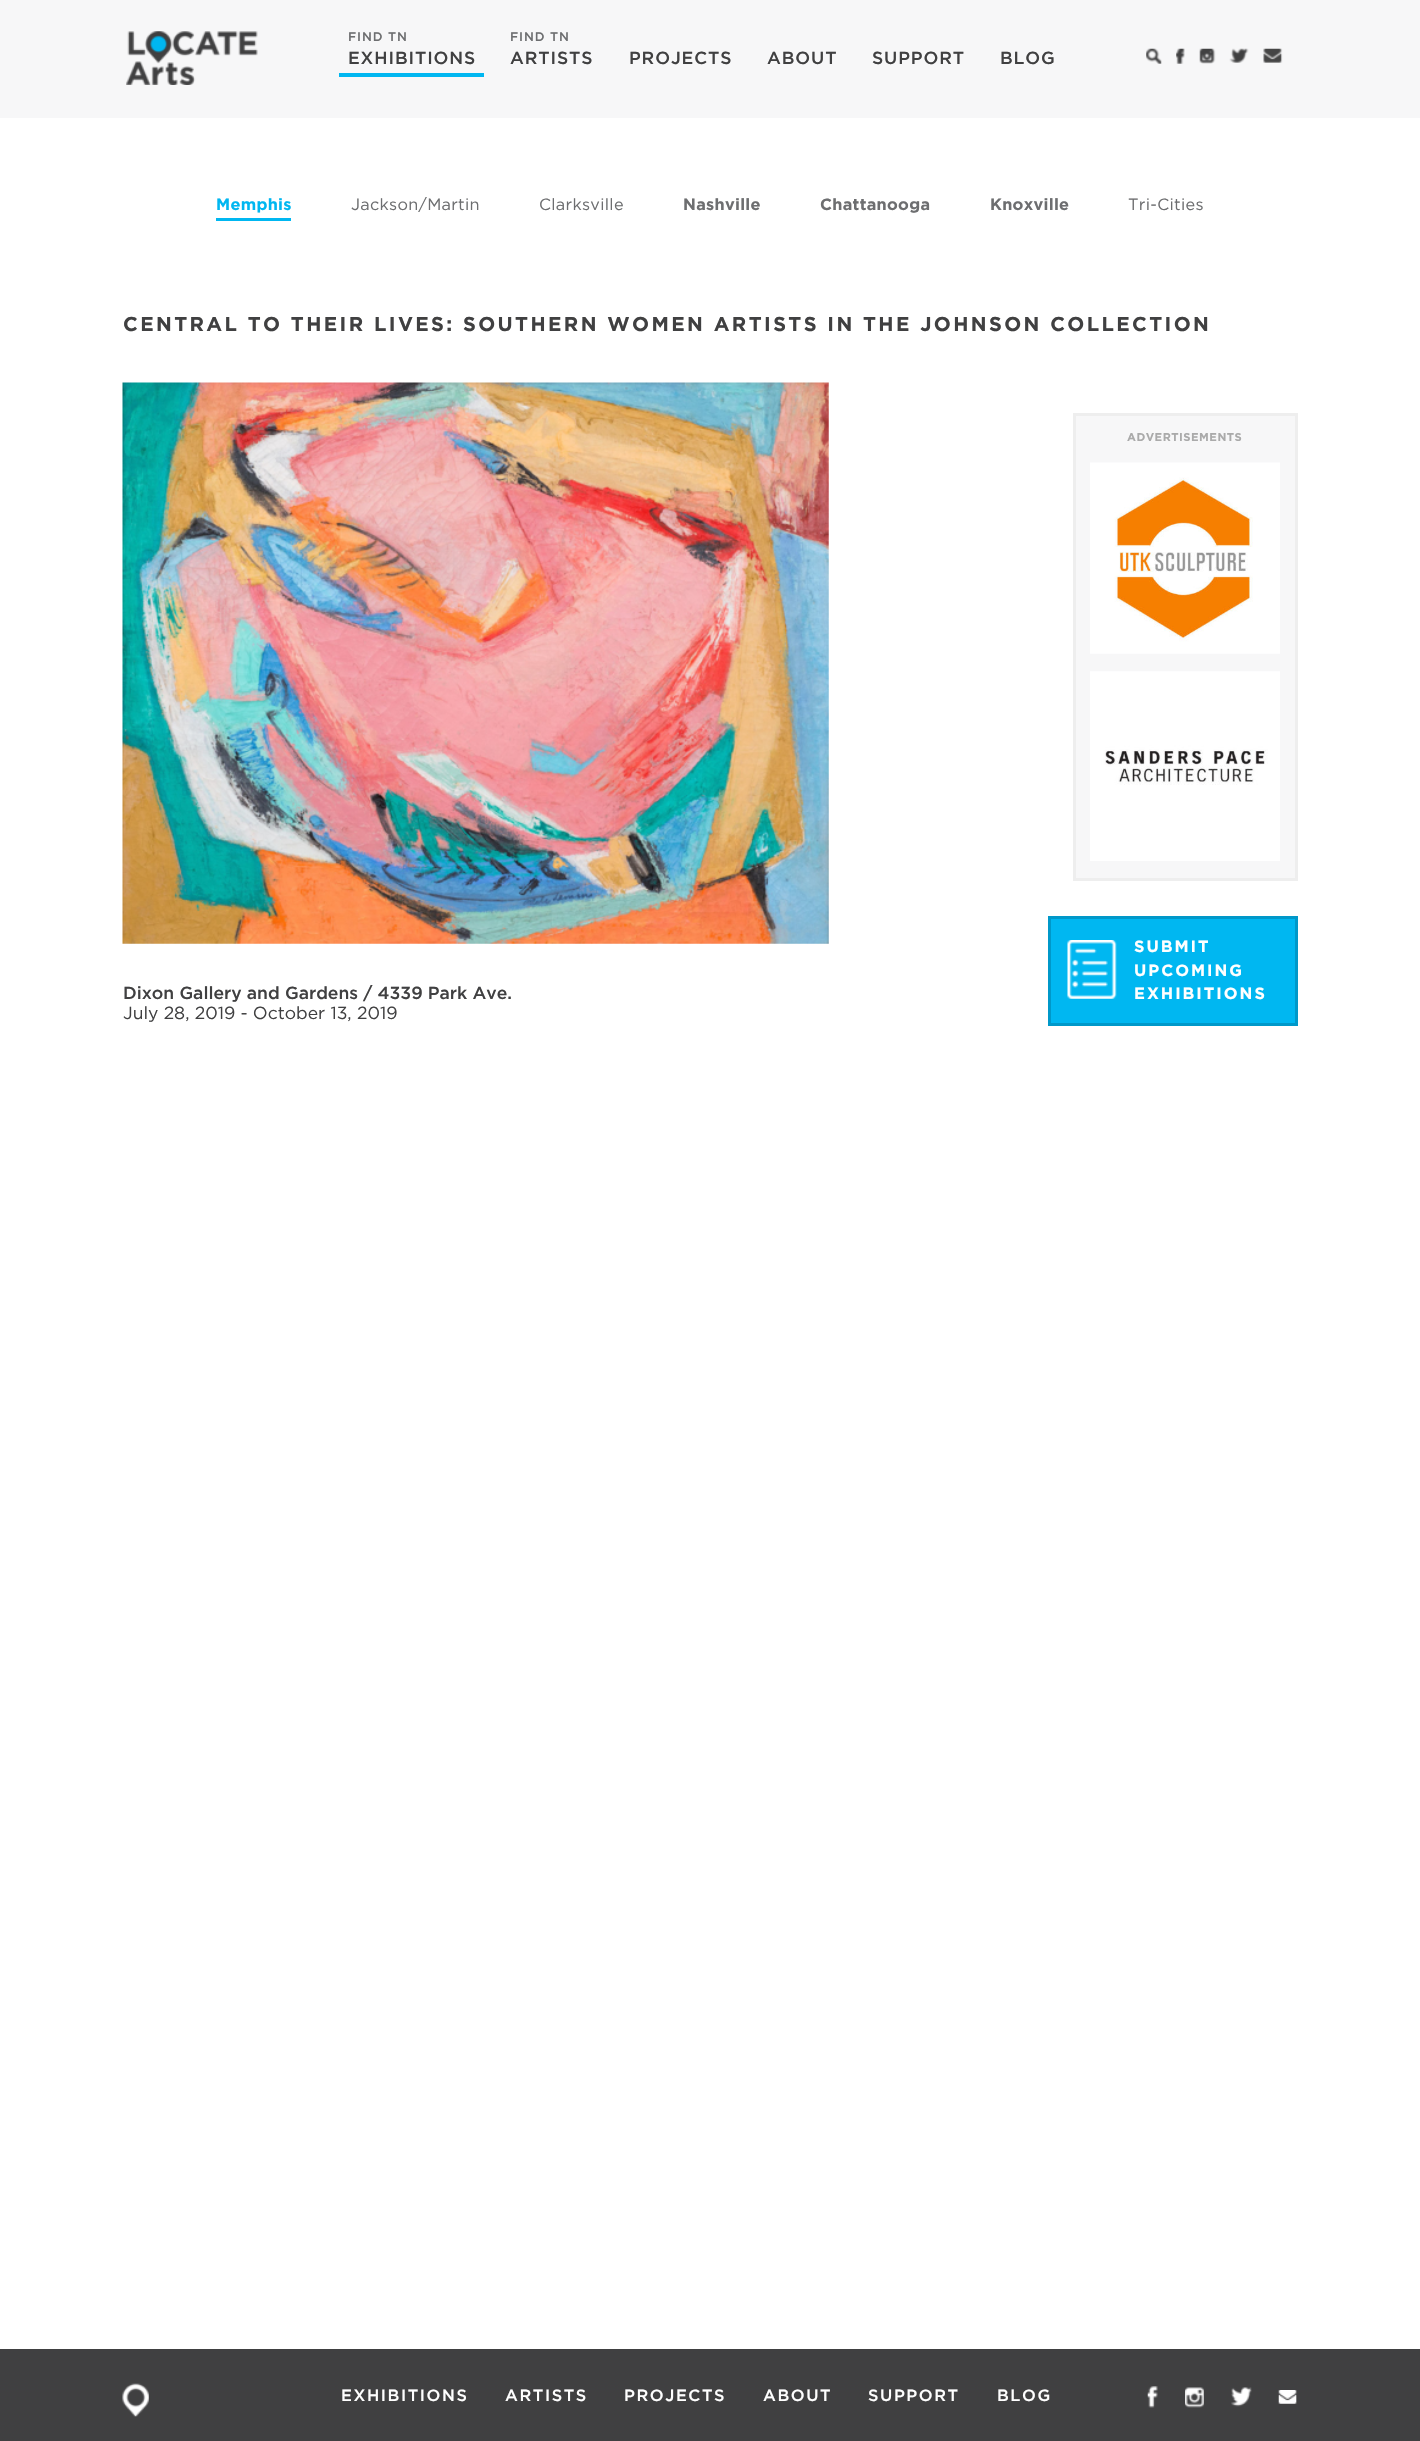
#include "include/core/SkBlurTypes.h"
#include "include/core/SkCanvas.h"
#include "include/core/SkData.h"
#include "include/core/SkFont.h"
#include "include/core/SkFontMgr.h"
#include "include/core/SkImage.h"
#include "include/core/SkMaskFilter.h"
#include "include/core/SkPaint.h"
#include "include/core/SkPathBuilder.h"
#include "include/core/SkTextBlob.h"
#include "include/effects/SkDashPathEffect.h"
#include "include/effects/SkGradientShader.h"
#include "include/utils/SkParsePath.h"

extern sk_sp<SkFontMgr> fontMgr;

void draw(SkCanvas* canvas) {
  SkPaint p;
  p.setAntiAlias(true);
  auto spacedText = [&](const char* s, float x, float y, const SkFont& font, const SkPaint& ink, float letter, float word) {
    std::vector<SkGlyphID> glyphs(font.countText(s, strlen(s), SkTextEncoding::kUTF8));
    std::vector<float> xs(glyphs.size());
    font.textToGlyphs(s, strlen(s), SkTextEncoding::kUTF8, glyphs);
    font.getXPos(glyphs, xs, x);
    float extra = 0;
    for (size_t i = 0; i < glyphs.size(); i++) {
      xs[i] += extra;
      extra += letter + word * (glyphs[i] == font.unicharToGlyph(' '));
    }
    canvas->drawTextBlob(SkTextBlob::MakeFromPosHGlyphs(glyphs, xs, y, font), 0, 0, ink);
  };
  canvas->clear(SK_ColorWHITE);
  p.setColor(SkColorSetRGB(247, 247, 248));
  canvas->drawRect(SkRect::MakeLTRB(0, 0, 1420, 118), p);
  canvas->drawImageRect(SkImages::DeferredFromEncodedData(SkData::MakeFromFileName("images/1.png")), SkRect::MakeLTRB(126, 31, 258, 85), SkSamplingOptions());
  p.setColor(SkColorSetRGB(0, 183, 241));
  canvas->drawRect(SkRect::MakeLTRB(339, 73, 484, 77), p);
  canvas->drawImageRect(SkImages::DeferredFromEncodedData(SkData::MakeFromFileName("images/2.png")), SkRect::MakeLTRB(1146, 48, 1162, 64), SkSamplingOptions());
  canvas->drawImageRect(SkImages::DeferredFromEncodedData(SkData::MakeFromFileName("images/3.png")), SkRect::MakeLTRB(1176, 48, 1185, 64), SkSamplingOptions());
  canvas->drawImageRect(SkImages::DeferredFromEncodedData(SkData::MakeFromFileName("images/4.png")), SkRect::MakeLTRB(1199, 48, 1216, 64), SkSamplingOptions());
  canvas->drawImageRect(SkImages::DeferredFromEncodedData(SkData::MakeFromFileName("images/5.png")), SkRect::MakeLTRB(1229, 48, 1249, 63), SkSamplingOptions());
  canvas->drawImageRect(SkImages::DeferredFromEncodedData(SkData::MakeFromFileName("images/6.png")), SkRect::MakeLTRB(1263, 48, 1283, 63), SkSamplingOptions());
  canvas->drawRect(SkRect::MakeLTRB(216, 218, 291, 221), p);
  canvas->drawImageRect(SkImages::DeferredFromEncodedData(SkData::MakeFromFileName("images/7.png")), SkRect::MakeLTRB(122, 382, 829, 944), SkSamplingOptions());
  p.setColor(SkColorSetRGB(247, 247, 248));
  canvas->drawRect(SkRect::MakeLTRB(1074.5f, 414.5f, 1296.5f, 879.5f), p);
  p.setStyle(SkPaint::kStroke_Style);
  p.setStrokeWidth(3);
  p.setColor(SkColorSetRGB(238, 238, 238));
  canvas->drawRect(SkRect::MakeLTRB(1074.5f, 414.5f, 1296.5f, 879.5f), p);
  canvas->drawImageRect(SkImages::DeferredFromEncodedData(SkData::MakeFromFileName("images/8.png")), SkRect::MakeLTRB(1090, 462, 1280, 654), SkSamplingOptions());
  canvas->drawImageRect(SkImages::DeferredFromEncodedData(SkData::MakeFromFileName("images/9.png")), SkRect::MakeLTRB(1090, 671, 1280, 861), SkSamplingOptions());
  p.setStyle(SkPaint::kFill_Style);
  p.setColor(SkColorSetRGB(0, 183, 241));
  canvas->drawRect(SkRect::MakeLTRB(1049.5f, 917.5f, 1296.5f, 1024.5f), p);
  p.setStyle(SkPaint::kStroke_Style);
  p.setColor(SkColorSetRGB(0, 152, 201));
  canvas->drawRect(SkRect::MakeLTRB(1049.5f, 917.5f, 1296.5f, 1024.5f), p);
  canvas->drawImageRect(SkImages::DeferredFromEncodedData(SkData::MakeFromFileName("images/10.png")), SkRect::MakeLTRB(1067, 940, 1117, 999), SkSamplingOptions());
  p.setStyle(SkPaint::kFill_Style);
  p.setColor(SkColorSetRGB(64, 64, 65));
  canvas->drawRect(SkRect::MakeLTRB(0, 2349, 1420, 2441), p);
  canvas->drawImageRect(SkImages::DeferredFromEncodedData(SkData::MakeFromFileName("images/11.png")), SkRect::MakeLTRB(122, 2383, 149, 2417), SkSamplingOptions());
  canvas->drawImageRect(SkImages::DeferredFromEncodedData(SkData::MakeFromFileName("images/12.png")), SkRect::MakeLTRB(1147, 2386, 1158, 2408), SkSamplingOptions());
  canvas->drawImageRect(SkImages::DeferredFromEncodedData(SkData::MakeFromFileName("images/13.png")), SkRect::MakeLTRB(1185, 2387, 1204, 2408), SkSamplingOptions());
  canvas->drawImageRect(SkImages::DeferredFromEncodedData(SkData::MakeFromFileName("images/14.png")), SkRect::MakeLTRB(1231, 2387, 1252, 2407), SkSamplingOptions());
  canvas->drawImageRect(SkImages::DeferredFromEncodedData(SkData::MakeFromFileName("images/15.png")), SkRect::MakeLTRB(1278, 2390, 1297, 2404), SkSamplingOptions());
  SkFont font1(fontMgr->matchFamilyStyle("Gotham", SkFontStyle(500, SkFontStyle::kNormal_Width, SkFontStyle::kUpright_Slant)), 12.5f);
  font1.setSubpixel(true);
  p.setColor(SkColorSetRGB(109, 110, 112));
  spacedText("FIND TN", 348, 41, font1, p, 0.9f, 0);
  SkFont font2(fontMgr->matchFamilyStyle("Gotham", SkFontStyle(500, SkFontStyle::kNormal_Width, SkFontStyle::kUpright_Slant)), 17.5f);
  font2.setSubpixel(true);
  p.setColor(SkColorSetRGB(64, 64, 65));
  spacedText("EXHIBITIONS", 348, 64, font2, p, 0.9f, 0);
  p.setColor(SkColorSetRGB(109, 110, 112));
  spacedText("FIND TN", 510, 41, font1, p, 0.9f, 0);
  p.setColor(SkColorSetRGB(64, 64, 65));
  spacedText("ARTISTS", 510, 64, font2, p, 0.9f, 0);
  spacedText("PROJECTS", 629, 64, font2, p, 0.9f, 0);
  spacedText("ABOUT", 767, 64, font2, p, 0.9f, 0);
  spacedText("SUPPORT", 872, 64, font2, p, 0.9f, 0);
  spacedText("BLOG", 1000, 64, font2, p, 0.9f, 0);
  SkFont font3(fontMgr->matchFamilyStyle("Gotham", SkFontStyle::Bold()), 16.25f);
  font3.setSubpixel(true);
  p.setColor(SkColorSetRGB(0, 183, 241));
  spacedText("Memphis", 216, 210, font3, p, 0.3f, 0);
  SkFont font4(fontMgr->matchFamilyStyle("Gotham", SkFontStyle::Normal()), 16.25f);
  font4.setSubpixel(true);
  p.setColor(SkColorSetRGB(109, 110, 112));
  spacedText("Jackson/Martin", 351, 210, font4, p, 0.3f, 0);
  spacedText("Clarksville", 539, 210, font4, p, 0.3f, 0);
  spacedText("Nashville", 683, 210, font3, p, 0.3f, 0);
  spacedText("Chattanooga", 820, 210, font3, p, 0.3f, 0);
  spacedText("Knoxville", 990, 210, font3, p, 0.3f, 0);
  spacedText("Tri-Cities", 1128, 210, font4, p, 0.3f, 0);
  SkFont font5(fontMgr->matchFamilyStyle("Gotham", SkFontStyle::Bold()), 20);
  font5.setSubpixel(true);
  p.setColor(SkColorSetRGB(64, 64, 65));
  spacedText("CENTRAL TO THEIR LIVES: SOUTHERN WOMEN ARTISTS IN THE JOHNSON COLLECTION", 123, 331, font5, p, 2.4f, 0);
  canvas->drawString("Dixon Gallery and Gardens / 4339 Park Ave.", 123, 999, font2, p);
  SkFont font6(fontMgr->matchFamilyStyle("Gotham", SkFontStyle::Normal()), 17.5f);
  font6.setSubpixel(true);
  canvas->drawString("July 28, 2019 - October 13, 2019", 123, 1019, font6, p);
  SkFont font7(fontMgr->matchFamilyStyle("Gotham", SkFontStyle::Bold()), 11.25f);
  font7.setSubpixel(true);
  p.setColor(SkColorSetRGB(170, 170, 170));
  spacedText("ADVERTISEMENTS", 1127, 441, font7, p, 0.5f, 0);
  p.setColor(SK_ColorWHITE);
  spacedText("SUBMIT", 1134, 952, font3, p, 2, 0);
  spacedText("UPCOMING", 1134, 976, font3, p, 2, 0);
  spacedText("EXHIBITIONS", 1134, 999, font3, p, 2, 0);
  SkFont font8(fontMgr->matchFamilyStyle("Gotham", SkFontStyle(500, SkFontStyle::kNormal_Width, SkFontStyle::kUpright_Slant)), 16.25f);
  font8.setSubpixel(true);
  spacedText("EXHIBITIONS", 341, 2401, font8, p, 1.6f, 0);
  spacedText("ARTISTS", 505, 2401, font8, p, 1.6f, 0);
  spacedText("PROJECTS", 624, 2401, font8, p, 1.6f, 0);
  spacedText("ABOUT", 763, 2401, font8, p, 1.6f, 0);
  spacedText("SUPPORT", 868, 2401, font8, p, 1.6f, 0);
  spacedText("BLOG", 997, 2401, font8, p, 1.6f, 0);
}
